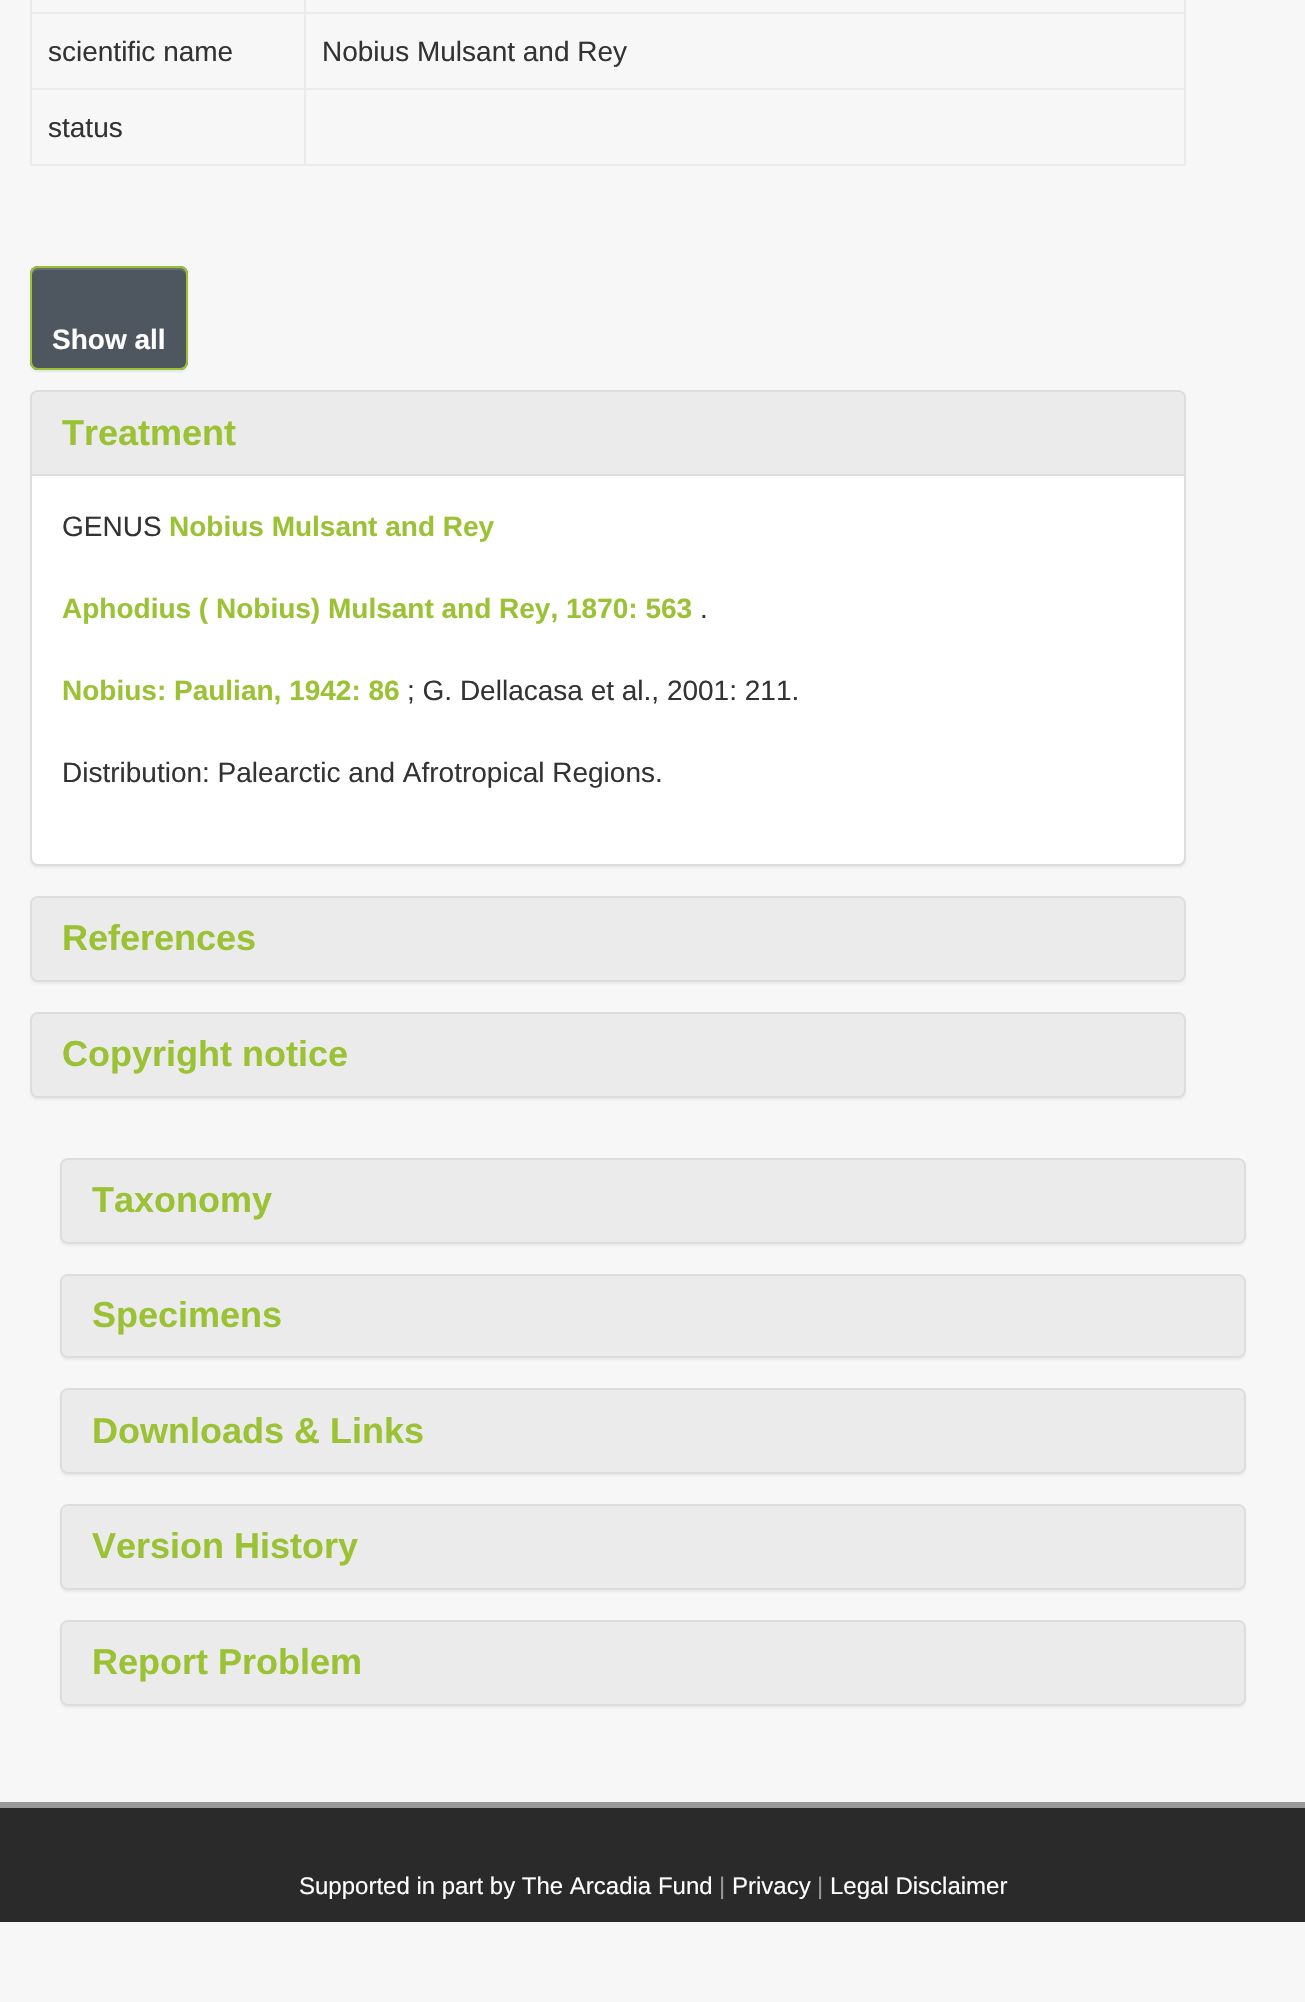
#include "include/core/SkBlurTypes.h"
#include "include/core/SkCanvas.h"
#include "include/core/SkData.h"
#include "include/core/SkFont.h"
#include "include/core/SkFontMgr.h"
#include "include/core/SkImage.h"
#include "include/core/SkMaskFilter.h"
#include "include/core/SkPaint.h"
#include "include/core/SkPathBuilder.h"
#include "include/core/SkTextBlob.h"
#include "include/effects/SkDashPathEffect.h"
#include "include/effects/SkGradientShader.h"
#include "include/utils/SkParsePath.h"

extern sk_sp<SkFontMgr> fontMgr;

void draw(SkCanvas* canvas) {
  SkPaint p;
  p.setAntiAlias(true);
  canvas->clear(SkColorSetRGB(247, 247, 247));
  p.setColor(SkColorSetRGB(235, 235, 235));
  canvas->drawRect(SkRect::MakeLTRB(30, 0, 32, 166), p);
  canvas->drawRect(SkRect::MakeLTRB(1184, 0, 1186, 166), p);
  canvas->drawRect(SkRect::MakeLTRB(304, 164, 1186, 166), p);
  canvas->drawRect(SkRect::MakeLTRB(304, 88, 306, 166), p);
  canvas->drawRect(SkRect::MakeLTRB(304, 88, 1186, 90), p);
  canvas->drawRect(SkRect::MakeLTRB(304, 12, 306, 90), p);
  canvas->drawRect(SkRect::MakeLTRB(304, 12, 1186, 14), p);
  canvas->drawRect(SkRect::MakeLTRB(304, 0, 306, 14), p);
  canvas->drawRect(SkRect::MakeLTRB(30, 12, 306, 14), p);
  canvas->drawRect(SkRect::MakeLTRB(30, 88, 306, 90), p);
  canvas->drawRect(SkRect::MakeLTRB(30, 164, 306, 166), p);
  p.setColor(SkColorSetARGB(18, 0, 0, 0));
  p.setMaskFilter(SkMaskFilter::MakeBlur(kNormal_SkBlurStyle, 1));
  canvas->drawRoundRect(SkRect::MakeLTRB(30, 268, 188, 372), 8, 8, p);
  p.setMaskFilter(nullptr);
  p.setColor(SkColorSetRGB(78, 86, 95));
  canvas->drawRoundRect(SkRect::MakeLTRB(30, 266, 188, 370), 8, 8, p);
  p.setColor(SkColorSetRGB(105, 111, 119));
  canvas->drawPath(SkPathBuilder().moveTo(38, 270).lineTo(180, 270).cubicTo(183, 270, 186, 273, 186, 276).lineTo(186, 274).cubicTo(186, 271, 183, 268, 180, 268).lineTo(38, 268).cubicTo(35, 268, 32, 271, 32, 274).lineTo(32, 276).cubicTo(32, 273, 35, 270, 38, 270).close().detach(), p);
  p.setStyle(SkPaint::kStroke_Style);
  p.setStrokeWidth(2);
  p.setColor(SkColorSetRGB(155, 193, 52));
  canvas->drawRoundRect(SkRect::MakeLTRB(31, 267, 187, 369), 7, 7, p);
  p.setStyle(SkPaint::kFill_Style);
  p.setColor(SkColorSetARGB(13, 0, 0, 0));
  p.setMaskFilter(SkMaskFilter::MakeBlur(kNormal_SkBlurStyle, 1));
  canvas->drawRoundRect(SkRect::MakeLTRB(30, 392, 1186, 868), 8, 8, p);
  p.setMaskFilter(nullptr);
  p.setColor(SK_ColorWHITE);
  canvas->drawRoundRect(SkRect::MakeLTRB(31, 391, 1185, 865), 7, 7, p);
  p.setStyle(SkPaint::kStroke_Style);
  p.setColor(SkColorSetRGB(221, 221, 221));
  canvas->drawRoundRect(SkRect::MakeLTRB(31, 391, 1185, 865), 7, 7, p);
  p.setStyle(SkPaint::kFill_Style);
  p.setColor(SkColorSetRGB(235, 235, 235));
  canvas->drawPath(SkPathBuilder().moveTo(38, 392).lineTo(1178, 392).cubicTo(1181.5f, 392, 1184, 394.5f, 1184, 398).lineTo(1184, 474).lineTo(32, 474).lineTo(32, 398).cubicTo(32, 394.5f, 34.5f, 392, 38, 392).close().detach(), p);
  p.setColor(SkColorSetRGB(221, 221, 221));
  canvas->drawRect(SkRect::MakeLTRB(32, 474, 1184, 476), p);
  p.setColor(SkColorSetARGB(13, 0, 0, 0));
  p.setMaskFilter(SkMaskFilter::MakeBlur(kNormal_SkBlurStyle, 1));
  canvas->drawRoundRect(SkRect::MakeLTRB(30, 898, 1186, 984), 8, 8, p);
  p.setMaskFilter(nullptr);
  p.setStyle(SkPaint::kStroke_Style);
  p.setColor(SkColorSetRGB(221, 221, 221));
  canvas->drawRoundRect(SkRect::MakeLTRB(31, 897, 1185, 981), 7, 7, p);
  p.setStyle(SkPaint::kFill_Style);
  p.setColor(SkColorSetRGB(235, 235, 235));
  canvas->drawRoundRect(SkRect::MakeLTRB(32, 898, 1184, 980), 6, 6, p);
  p.setColor(SkColorSetARGB(13, 0, 0, 0));
  p.setMaskFilter(SkMaskFilter::MakeBlur(kNormal_SkBlurStyle, 1));
  canvas->drawRoundRect(SkRect::MakeLTRB(30, 1014, 1186, 1100), 8, 8, p);
  p.setMaskFilter(nullptr);
  p.setStyle(SkPaint::kStroke_Style);
  p.setColor(SkColorSetRGB(221, 221, 221));
  canvas->drawRoundRect(SkRect::MakeLTRB(31, 1013, 1185, 1097), 7, 7, p);
  p.setStyle(SkPaint::kFill_Style);
  p.setColor(SkColorSetRGB(235, 235, 235));
  canvas->drawRoundRect(SkRect::MakeLTRB(32, 1014, 1184, 1096), 6, 6, p);
  p.setColor(SkColorSetARGB(13, 0, 0, 0));
  p.setMaskFilter(SkMaskFilter::MakeBlur(kNormal_SkBlurStyle, 1));
  canvas->drawRoundRect(SkRect::MakeLTRB(60, 1160, 1246, 1246), 8, 8, p);
  p.setMaskFilter(nullptr);
  p.setStyle(SkPaint::kStroke_Style);
  p.setColor(SkColorSetRGB(221, 221, 221));
  canvas->drawRoundRect(SkRect::MakeLTRB(61, 1159, 1245, 1243), 7, 7, p);
  p.setStyle(SkPaint::kFill_Style);
  p.setColor(SkColorSetRGB(235, 235, 235));
  canvas->drawRoundRect(SkRect::MakeLTRB(62, 1160, 1244, 1242), 6, 6, p);
  p.setColor(SkColorSetARGB(13, 0, 0, 0));
  p.setMaskFilter(SkMaskFilter::MakeBlur(kNormal_SkBlurStyle, 1));
  canvas->drawRoundRect(SkRect::MakeLTRB(60, 1276, 1246, 1360), 8, 8, p);
  p.setMaskFilter(nullptr);
  p.setStyle(SkPaint::kStroke_Style);
  p.setColor(SkColorSetRGB(221, 221, 221));
  canvas->drawRoundRect(SkRect::MakeLTRB(61, 1275, 1245, 1357), 7, 7, p);
  p.setStyle(SkPaint::kFill_Style);
  p.setColor(SkColorSetRGB(235, 235, 235));
  canvas->drawRoundRect(SkRect::MakeLTRB(62, 1276, 1244, 1356), 6, 6, p);
  p.setColor(SkColorSetARGB(13, 0, 0, 0));
  p.setMaskFilter(SkMaskFilter::MakeBlur(kNormal_SkBlurStyle, 1));
  canvas->drawRoundRect(SkRect::MakeLTRB(60, 1390, 1246, 1476), 8, 8, p);
  p.setMaskFilter(nullptr);
  p.setStyle(SkPaint::kStroke_Style);
  p.setColor(SkColorSetRGB(221, 221, 221));
  canvas->drawRoundRect(SkRect::MakeLTRB(61, 1389, 1245, 1473), 7, 7, p);
  p.setStyle(SkPaint::kFill_Style);
  p.setColor(SkColorSetRGB(235, 235, 235));
  canvas->drawRoundRect(SkRect::MakeLTRB(62, 1390, 1244, 1472), 6, 6, p);
  p.setColor(SkColorSetARGB(13, 0, 0, 0));
  p.setMaskFilter(SkMaskFilter::MakeBlur(kNormal_SkBlurStyle, 1));
  canvas->drawRoundRect(SkRect::MakeLTRB(60, 1506, 1246, 1592), 8, 8, p);
  p.setMaskFilter(nullptr);
  p.setStyle(SkPaint::kStroke_Style);
  p.setColor(SkColorSetRGB(221, 221, 221));
  canvas->drawRoundRect(SkRect::MakeLTRB(61, 1505, 1245, 1589), 7, 7, p);
  p.setStyle(SkPaint::kFill_Style);
  p.setColor(SkColorSetRGB(235, 235, 235));
  canvas->drawRoundRect(SkRect::MakeLTRB(62, 1506, 1244, 1588), 6, 6, p);
  p.setColor(SkColorSetARGB(13, 0, 0, 0));
  p.setMaskFilter(SkMaskFilter::MakeBlur(kNormal_SkBlurStyle, 1));
  canvas->drawRoundRect(SkRect::MakeLTRB(60, 1622, 1246, 1708), 8, 8, p);
  p.setMaskFilter(nullptr);
  p.setStyle(SkPaint::kStroke_Style);
  p.setColor(SkColorSetRGB(221, 221, 221));
  canvas->drawRoundRect(SkRect::MakeLTRB(61, 1621, 1245, 1705), 7, 7, p);
  p.setStyle(SkPaint::kFill_Style);
  p.setColor(SkColorSetRGB(235, 235, 235));
  canvas->drawRoundRect(SkRect::MakeLTRB(62, 1622, 1244, 1704), 6, 6, p);
  p.setColor(SkColorSetRGB(42, 42, 42));
  canvas->drawRect(SkRect::MakeLTRB(0, 1808, 1305, 1922), p);
  p.setColor(SkColorSetRGB(153, 153, 153));
  canvas->drawRect(SkRect::MakeLTRB(0, 1802, 1305, 1808), p);
  SkFont font1(fontMgr->matchFamilyStyle("Liberation Sans", SkFontStyle::Normal()), 28);
  font1.setSubpixel(true);
  p.setColor(SkColorSetRGB(51, 51, 51));
  canvas->drawString("scientific name", 48, 61, font1, p);
  canvas->drawString("Nobius Mulsant and Rey", 322, 61, font1, p);
  canvas->drawString("status", 48, 137, font1, p);
  SkFont font2(fontMgr->matchFamilyStyle("Liberation Sans", SkFontStyle::Bold()), 28);
  font2.setSubpixel(true);
  p.setColor(SK_ColorWHITE);
  canvas->drawString("Show all", 52, 349, font2, p);
  SkFont font3(fontMgr->matchFamilyStyle("Liberation Sans", SkFontStyle::Bold()), 36);
  font3.setSubpixel(true);
  p.setColor(SkColorSetRGB(155, 193, 52));
  canvas->drawString("Treatment", 62, 445, font3, p);
  p.setColor(SkColorSetRGB(51, 51, 51));
  canvas->drawString("GENUS", 62, 536, font1, p);
  p.setColor(SkColorSetRGB(155, 193, 52));
  canvas->drawString("Nobius Mulsant and Rey", 169, 536, font2, p);
  canvas->drawString("Aphodius ( Nobius) Mulsant and Rey, 1870: 563", 62, 618, font2, p);
  p.setColor(SkColorSetRGB(51, 51, 51));
  canvas->drawString(".", 700, 618, font1, p);
  p.setColor(SkColorSetRGB(155, 193, 52));
  canvas->drawString("Nobius: Paulian, 1942: 86", 62, 700, font2, p);
  p.setColor(SkColorSetRGB(51, 51, 51));
  canvas->drawString("; G. Dellacasa et al., 2001: 211.", 407, 700, font1, p);
  canvas->drawString("Distribution: Palearctic and Afrotropical Regions.", 62, 782, font1, p);
  p.setColor(SkColorSetRGB(155, 193, 52));
  canvas->drawString("References", 62, 950, font3, p);
  canvas->drawString("Copyright notice", 62, 1066, font3, p);
  canvas->drawString("Taxonomy", 92, 1212, font3, p);
  canvas->drawString("Specimens", 92, 1327, font3, p);
  canvas->drawString("Downloads & Links", 92, 1443, font3, p);
  canvas->drawString("Version History", 92, 1558, font3, p);
  canvas->drawString("Report Problem", 92, 1674, font3, p);
  SkFont font4(fontMgr->matchFamilyStyle("Liberation Sans", SkFontStyle::Normal()), 24);
  font4.setSubpixel(true);
  p.setColor(SK_ColorWHITE);
  canvas->drawString("Supported in part by The Arcadia Fund", 299, 1894, font4, p);
  p.setColor(SkColorSetRGB(153, 153, 153));
  canvas->drawString("|", 719, 1894, font4, p);
  p.setColor(SK_ColorWHITE);
  canvas->drawString("Privacy", 732, 1894, font4, p);
  p.setColor(SkColorSetRGB(153, 153, 153));
  canvas->drawString("|", 817, 1894, font4, p);
  p.setColor(SK_ColorWHITE);
  canvas->drawString("Legal Disclaimer", 830, 1894, font4, p);
}
